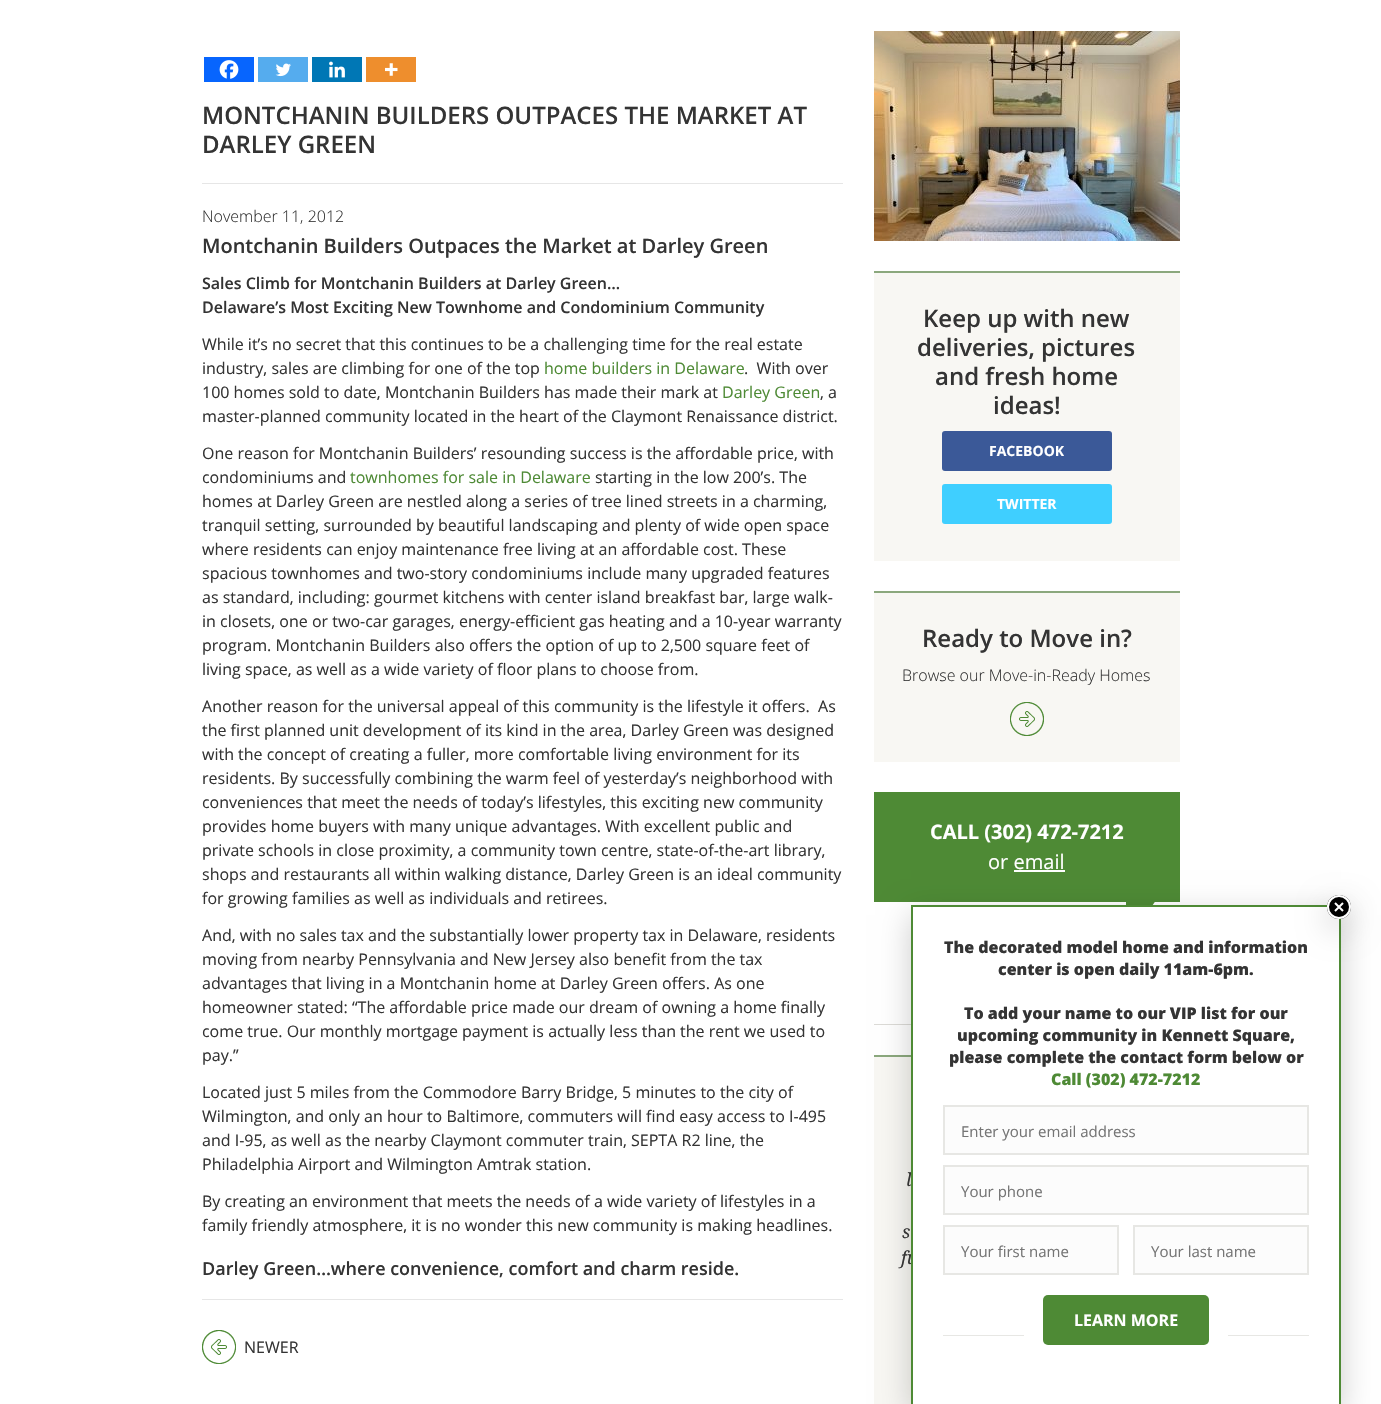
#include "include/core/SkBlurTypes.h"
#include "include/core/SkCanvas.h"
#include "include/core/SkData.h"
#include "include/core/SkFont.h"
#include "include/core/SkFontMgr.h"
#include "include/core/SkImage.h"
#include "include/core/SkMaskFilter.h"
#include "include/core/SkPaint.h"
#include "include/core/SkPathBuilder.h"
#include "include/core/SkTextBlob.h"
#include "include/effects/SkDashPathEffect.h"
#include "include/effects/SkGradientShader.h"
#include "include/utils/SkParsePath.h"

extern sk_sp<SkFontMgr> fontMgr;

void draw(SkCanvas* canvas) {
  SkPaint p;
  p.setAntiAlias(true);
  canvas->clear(SK_ColorWHITE);
  p.setColor(SkColorSetRGB(7, 101, 254));
  canvas->drawRect(SkRect::MakeLTRB(204, 57, 254, 82), p);
  canvas->drawImageRect(SkImages::DeferredFromEncodedData(SkData::MakeFromFileName("images/1.png")), SkRect::MakeLTRB(219, 60, 239, 79), SkSamplingOptions());
  p.setColor(SkColorSetRGB(85, 172, 238));
  canvas->drawRect(SkRect::MakeLTRB(258, 57, 308, 82), p);
  canvas->drawImageRect(SkImages::DeferredFromEncodedData(SkData::MakeFromFileName("images/2.png")), SkRect::MakeLTRB(275, 63, 291, 77), SkSamplingOptions());
  p.setColor(SkColorSetRGB(0, 119, 181));
  canvas->drawRect(SkRect::MakeLTRB(312, 57, 362, 82), p);
  canvas->drawImageRect(SkImages::DeferredFromEncodedData(SkData::MakeFromFileName("images/3.png")), SkRect::MakeLTRB(329, 61, 345, 78), SkSamplingOptions());
  p.setColor(SkColorSetRGB(238, 142, 45));
  canvas->drawRect(SkRect::MakeLTRB(366, 57, 416, 82), p);
  canvas->drawImageRect(SkImages::DeferredFromEncodedData(SkData::MakeFromFileName("images/4.png")), SkRect::MakeLTRB(385, 63, 398, 76), SkSamplingOptions());
  p.setColor(SkColorSetRGB(230, 230, 230));
  canvas->drawRect(SkRect::MakeLTRB(202, 183, 843, 184), p);
  canvas->drawRect(SkRect::MakeLTRB(202, 1299, 843, 1300), p);
  canvas->drawImageRect(SkImages::DeferredFromEncodedData(SkData::MakeFromFileName("images/5.png")), SkRect::MakeLTRB(202, 1330, 236, 1364), SkSamplingOptions());
  canvas->drawImageRect(SkImages::DeferredFromEncodedData(SkData::MakeFromFileName("images/6.png")), SkRect::MakeLTRB(874, 31, 1180, 241), SkSamplingOptions());
  p.setColor(SkColorSetRGB(248, 247, 243));
  canvas->drawRect(SkRect::MakeLTRB(874, 273, 1180, 561), p);
  p.setColor(SkColorSetRGB(139, 168, 125));
  canvas->drawRect(SkRect::MakeLTRB(874, 271, 1180, 273), p);
  p.setColor(SkColorSetRGB(59, 89, 152));
  canvas->drawRoundRect(SkRect::MakeLTRB(942, 431, 1112, 471), 3, 3, p);
  p.setColor(SkColorSetRGB(63, 207, 255));
  canvas->drawRoundRect(SkRect::MakeLTRB(942, 484, 1112, 524), 3, 3, p);
  p.setColor(SkColorSetRGB(248, 247, 243));
  canvas->drawRect(SkRect::MakeLTRB(874, 593, 1180, 762), p);
  p.setColor(SkColorSetRGB(139, 168, 125));
  canvas->drawRect(SkRect::MakeLTRB(874, 591, 1180, 593), p);
  canvas->drawImageRect(SkImages::DeferredFromEncodedData(SkData::MakeFromFileName("images/7.png")), SkRect::MakeLTRB(1010, 702, 1044, 736), SkSamplingOptions());
  p.setColor(SkColorSetRGB(78, 138, 53));
  canvas->drawRect(SkRect::MakeLTRB(874, 792, 1180, 902), p);
  p.setColor(SK_ColorWHITE);
  canvas->drawRect(SkRect::MakeLTRB(1014, 870, 1065, 872), p);
  canvas->drawImageRect(SkImages::DeferredFromEncodedData(SkData::MakeFromFileName("images/8.png")), SkRect::MakeLTRB(1126, 902, 1155, 905), SkSamplingOptions());
  p.setColor(SkColorSetRGB(220, 219, 215));
  canvas->drawRect(SkRect::MakeLTRB(874, 1024, 911, 1025), p);
  p.setColor(SkColorSetRGB(248, 247, 243));
  canvas->drawRect(SkRect::MakeLTRB(874, 1057, 911, 1404), p);
  p.setColor(SkColorSetRGB(139, 168, 125));
  canvas->drawRect(SkRect::MakeLTRB(874, 1055, 911, 1057), p);
  p.setColor(SkColorSetARGB(51, 0, 0, 0));
  p.setMaskFilter(SkMaskFilter::MakeBlur(kNormal_SkBlurStyle, 15));
  canvas->drawRect(SkRect::MakeLTRB(911, 915, 1341, 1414), p);
  p.setMaskFilter(nullptr);
  p.setColor(SkColorSetRGB(78, 138, 53));
  canvas->drawRect(SkRect::MakeLTRB(911, 905, 1328, 907), p);
  canvas->drawRect(SkRect::MakeLTRB(1339, 918, 1341, 1404), p);
  SkFont font1(fontMgr->matchFamilyStyle("Open Sans", SkFontStyle(600, SkFontStyle::kNormal_Width, SkFontStyle::kUpright_Slant)), 24);
  font1.setSubpixel(true);
  p.setColor(SkColorSetRGB(52, 52, 52));
  canvas->drawString("MONTCHANIN BUILDERS OUTPACES THE MARKET AT", 202, 124, font1, p);
  canvas->drawString("DARLEY GREEN", 202, 153, font1, p);
  SkFont font2(fontMgr->matchFamilyStyle("Open Sans", SkFontStyle(300, SkFontStyle::kNormal_Width, SkFontStyle::kUpright_Slant)), 16);
  font2.setSubpixel(true);
  canvas->drawString("November 11, 2012", 202, 222, font2, p);
  SkFont font3(fontMgr->matchFamilyStyle("Open Sans", SkFontStyle(600, SkFontStyle::kNormal_Width, SkFontStyle::kUpright_Slant)), 20);
  font3.setSubpixel(true);
  canvas->drawString("Montchanin Builders Outpaces the Market at Darley Green", 202, 253, font3, p);
  SkFont font4(fontMgr->matchFamilyStyle("Open Sans", SkFontStyle(600, SkFontStyle::kNormal_Width, SkFontStyle::kUpright_Slant)), 16);
  font4.setSubpixel(true);
  canvas->drawString("Sales Climb for Montchanin Builders at Darley Green…", 202, 289, font4, p);
  canvas->drawString("Delaware’s Most Exciting New Townhome and Condominium Community", 202, 313, font4, p);
  SkFont font5(fontMgr->matchFamilyStyle("Open Sans", SkFontStyle::Normal()), 16);
  font5.setSubpixel(true);
  canvas->drawString("While it’s no secret that this continues to be a challenging time for the real estate", 202, 350, font5, p);
  canvas->drawString("industry, sales are climbing for one of the top", 202, 374, font5, p);
  p.setColor(SkColorSetRGB(78, 138, 53));
  canvas->drawString("home builders in Delaware", 544, 374, font5, p);
  p.setColor(SkColorSetRGB(52, 52, 52));
  canvas->drawString(".  With over", 744, 374, font5, p);
  canvas->drawString("100 homes sold to date, Montchanin Builders has made their mark at", 202, 398, font5, p);
  p.setColor(SkColorSetRGB(78, 138, 53));
  canvas->drawString("Darley Green", 722, 398, font5, p);
  p.setColor(SkColorSetRGB(52, 52, 52));
  canvas->drawString(", a", 820, 398, font5, p);
  canvas->drawString("master-planned community located in the heart of the Claymont Renaissance district.", 202, 422, font5, p);
  canvas->drawString("One reason for Montchanin Builders’ resounding success is the affordable price, with", 202, 459, font5, p);
  canvas->drawString("condominiums and", 202, 483, font5, p);
  p.setColor(SkColorSetRGB(78, 138, 53));
  canvas->drawString("townhomes for sale in Delaware", 350, 483, font5, p);
  p.setColor(SkColorSetRGB(52, 52, 52));
  canvas->drawString("starting in the low 200’s. The", 595, 483, font5, p);
  canvas->drawString("homes at Darley Green are nestled along a series of tree lined streets in a charming,", 202, 507, font5, p);
  canvas->drawString("tranquil setting, surrounded by beautiful landscaping and plenty of wide open space", 202, 531, font5, p);
  canvas->drawString("where residents can enjoy maintenance free living at an affordable cost. These", 202, 555, font5, p);
  canvas->drawString("spacious townhomes and two-story condominiums include many upgraded features", 202, 579, font5, p);
  canvas->drawString("as standard, including: gourmet kitchens with center island breakfast bar, large walk-", 202, 603, font5, p);
  canvas->drawString("in closets, one or two-car garages, energy-efficient gas heating and a 10-year warranty", 202, 627, font5, p);
  canvas->drawString("program. Montchanin Builders also offers the option of up to 2,500 square feet of", 202, 651, font5, p);
  canvas->drawString("living space, as well as a wide variety of floor plans to choose from.", 202, 675, font5, p);
  canvas->drawString("Another reason for the universal appeal of this community is the lifestyle it offers.  As", 202, 712, font5, p);
  canvas->drawString("the first planned unit development of its kind in the area, Darley Green was designed", 202, 736, font5, p);
  canvas->drawString("with the concept of creating a fuller, more comfortable living environment for its", 202, 760, font5, p);
  canvas->drawString("residents. By successfully combining the warm feel of yesterday’s neighborhood with", 202, 784, font5, p);
  canvas->drawString("conveniences that meet the needs of today’s lifestyles, this exciting new community", 202, 808, font5, p);
  canvas->drawString("provides home buyers with many unique advantages. With excellent public and", 202, 832, font5, p);
  canvas->drawString("private schools in close proximity, a community town centre, state-of-the-art library,", 202, 856, font5, p);
  canvas->drawString("shops and restaurants all within walking distance, Darley Green is an ideal community", 202, 880, font5, p);
  canvas->drawString("for growing families as well as individuals and retirees.", 202, 904, font5, p);
  canvas->drawString("And, with no sales tax and the substantially lower property tax in Delaware, residents", 202, 941, font5, p);
  canvas->drawString("moving from nearby Pennsylvania and New Jersey also benefit from the tax", 202, 965, font5, p);
  canvas->drawString("advantages that living in a Montchanin home at Darley Green offers. As one", 202, 989, font5, p);
  canvas->drawString("homeowner stated: “The affordable price made our dream of owning a home finally", 202, 1013, font5, p);
  canvas->drawString("come true. Our monthly mortgage payment is actually less than the rent we used to", 202, 1037, font5, p);
  canvas->drawString("pay.”", 202, 1061, font5, p);
  canvas->drawString("Located just 5 miles from the Commodore Barry Bridge, 5 minutes to the city of", 202, 1098, font5, p);
  canvas->drawString("Wilmington, and only an hour to Baltimore, commuters will find easy access to I-495", 202, 1122, font5, p);
  canvas->drawString("and I-95, as well as the nearby Claymont commuter train, SEPTA R2 line, the", 202, 1146, font5, p);
  canvas->drawString("Philadelphia Airport and Wilmington Amtrak station.", 202, 1170, font5, p);
  canvas->drawString("By creating an environment that meets the needs of a wide variety of lifestyles in a", 202, 1207, font5, p);
  canvas->drawString("family friendly atmosphere, it is no wonder this new community is making headlines.", 202, 1231, font5, p);
  SkFont font6(fontMgr->matchFamilyStyle("Open Sans", SkFontStyle(600, SkFontStyle::kNormal_Width, SkFontStyle::kUpright_Slant)), 18);
  font6.setSubpixel(true);
  canvas->drawString("Darley Green…where convenience, comfort and charm reside.", 202, 1275, font6, p);
  canvas->drawString("NEWER", 244, 1353, font5, p);
  canvas->drawString("Keep up with new", 923, 327, font1, p);
  canvas->drawString("deliveries, pictures", 917, 356, font1, p);
  canvas->drawString("and fresh home", 935, 385, font1, p);
  canvas->drawString("ideas!", 993, 414, font1, p);
  SkFont font7(fontMgr->matchFamilyStyle("Open Sans", SkFontStyle::Bold()), 14);
  font7.setSubpixel(true);
  p.setColor(SK_ColorWHITE);
  canvas->drawString("FACEBOOK", 989, 456, font7, p);
  canvas->drawString("TWITTER", 997, 509, font7, p);
  p.setColor(SkColorSetRGB(52, 52, 52));
  canvas->drawString("Ready to Move in?", 922, 647, font1, p);
  canvas->drawString("Browse our Move-in-Ready Homes", 902, 681, font2, p);
  SkFont font8(fontMgr->matchFamilyStyle("Open Sans", SkFontStyle::Bold()), 20);
  font8.setSubpixel(true);
  p.setColor(SK_ColorWHITE);
  canvas->drawString("CALL (302) 472-7212", 930, 839, font8, p);
  SkFont font9(fontMgr->matchFamilyStyle("Open Sans", SkFontStyle::Normal()), 20);
  font9.setSubpixel(true);
  canvas->drawString("or email", 988, 869, font9, p);
  SkFont font10(fontMgr->matchFamilyStyle("Droid Serif", SkFontStyle::Italic()), 18);
  font10.setSubpixel(true);
  p.setColor(SkColorSetRGB(52, 52, 52));
  canvas->drawString("l", 906, 1186, font10, p);
  canvas->drawString("s", 902, 1238, font10, p);
  canvas->drawString("fu", 901, 1264, font10, p);
  p.setColor(SK_ColorWHITE);
  canvas->drawRect(SkRect::MakeLTRB(913, 907, 1339, 1404), p);
  p.setColor(SkColorSetRGB(78, 138, 53));
  canvas->drawRect(SkRect::MakeLTRB(911, 905, 913, 1404), p);
  p.setColor(SkColorSetARGB(51, 0, 0, 0));
  p.setMaskFilter(SkMaskFilter::MakeBlur(kNormal_SkBlurStyle, 15));
  canvas->drawRoundRect(SkRect::MakeLTRB(1327, 905, 1351, 929), 12, 12, p);
  p.setMaskFilter(nullptr);
  p.setColor(SK_ColorBLACK);
  canvas->drawCircle(1339, 907, 12, p);
  p.setStyle(SkPaint::kStroke_Style);
  p.setStrokeWidth(2);
  p.setColor(SK_ColorWHITE);
  canvas->drawPath(SkPathBuilder().moveTo(1343, 903).lineTo(1335, 911).moveTo(1335, 903).lineTo(1343, 911).detach(), p);
  canvas->drawCircle(1339, 907, 11, p);
  SkFont font11(fontMgr->matchFamilyStyle("Open Sans", SkFontStyle(800, SkFontStyle::kNormal_Width, SkFontStyle::kUpright_Slant)), 16);
  font11.setSubpixel(true);
  p.setStyle(SkPaint::kFill_Style);
  p.setColor(SkColorSetRGB(52, 52, 52));
  canvas->drawString("The decorated model home and information", 944, 953, font11, p);
  canvas->drawString("center is open daily 11am-6pm.", 998, 975, font11, p);
  canvas->drawString("To add your name to our VIP list for our", 964, 1019, font11, p);
  canvas->drawString("upcoming community in Kennett Square,", 957, 1041, font11, p);
  canvas->drawString("please complete the contact form below or", 949, 1063, font11, p);
  p.setColor(SkColorSetRGB(78, 138, 53));
  canvas->drawString("Call (302) 472-7212", 1051, 1085, font11, p);
  p.setColor(SkColorSetRGB(252, 252, 252));
  canvas->drawRect(SkRect::MakeLTRB(944, 1106, 1308, 1154), p);
  p.setStyle(SkPaint::kStroke_Style);
  p.setColor(SkColorSetRGB(231, 231, 228));
  canvas->drawRect(SkRect::MakeLTRB(944, 1106, 1308, 1154), p);
  SkFont font12(fontMgr->matchFamilyStyle("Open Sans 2", SkFontStyle::Normal()), 15);
  font12.setSubpixel(true);
  p.setStyle(SkPaint::kFill_Style);
  p.setColor(SkColorSetRGB(117, 117, 117));
  canvas->drawString("Enter your email address", 961, 1137, font12, p);
  p.setColor(SkColorSetRGB(252, 252, 252));
  canvas->drawRect(SkRect::MakeLTRB(944, 1166, 1308, 1214), p);
  p.setStyle(SkPaint::kStroke_Style);
  p.setColor(SkColorSetRGB(231, 231, 228));
  canvas->drawRect(SkRect::MakeLTRB(944, 1166, 1308, 1214), p);
  p.setStyle(SkPaint::kFill_Style);
  p.setColor(SkColorSetRGB(117, 117, 117));
  canvas->drawString("Your phone", 961, 1197, font12, p);
  p.setColor(SkColorSetRGB(252, 252, 252));
  canvas->drawRect(SkRect::MakeLTRB(944, 1226, 1118, 1274), p);
  p.setStyle(SkPaint::kStroke_Style);
  p.setColor(SkColorSetRGB(231, 231, 228));
  canvas->drawRect(SkRect::MakeLTRB(944, 1226, 1118, 1274), p);
  p.setStyle(SkPaint::kFill_Style);
  p.setColor(SkColorSetRGB(117, 117, 117));
  canvas->drawString("Your first name", 961, 1257, font12, p);
  p.setColor(SkColorSetRGB(252, 252, 252));
  canvas->drawRect(SkRect::MakeLTRB(1134, 1226, 1308, 1274), p);
  p.setStyle(SkPaint::kStroke_Style);
  p.setColor(SkColorSetRGB(231, 231, 228));
  canvas->drawRect(SkRect::MakeLTRB(1134, 1226, 1308, 1274), p);
  p.setStyle(SkPaint::kFill_Style);
  p.setColor(SkColorSetRGB(117, 117, 117));
  canvas->drawString("Your last name", 1151, 1257, font12, p);
  p.setColor(SkColorSetRGB(78, 138, 53));
  canvas->drawRoundRect(SkRect::MakeLTRB(1043, 1295, 1209, 1345), 5, 5, p);
  SkFont font13(fontMgr->matchFamilyStyle("Open Sans 2", SkFontStyle::Bold()), 16);
  font13.setSubpixel(true);
  p.setColor(SK_ColorWHITE);
  canvas->drawString("LEARN MORE", 1074, 1326, font13, p);
  p.setColor(SkColorSetRGB(231, 231, 228));
  canvas->drawRect(SkRect::MakeLTRB(943, 1335, 1024, 1336), p);
  canvas->drawRect(SkRect::MakeLTRB(1228, 1335, 1309, 1336), p);
}
